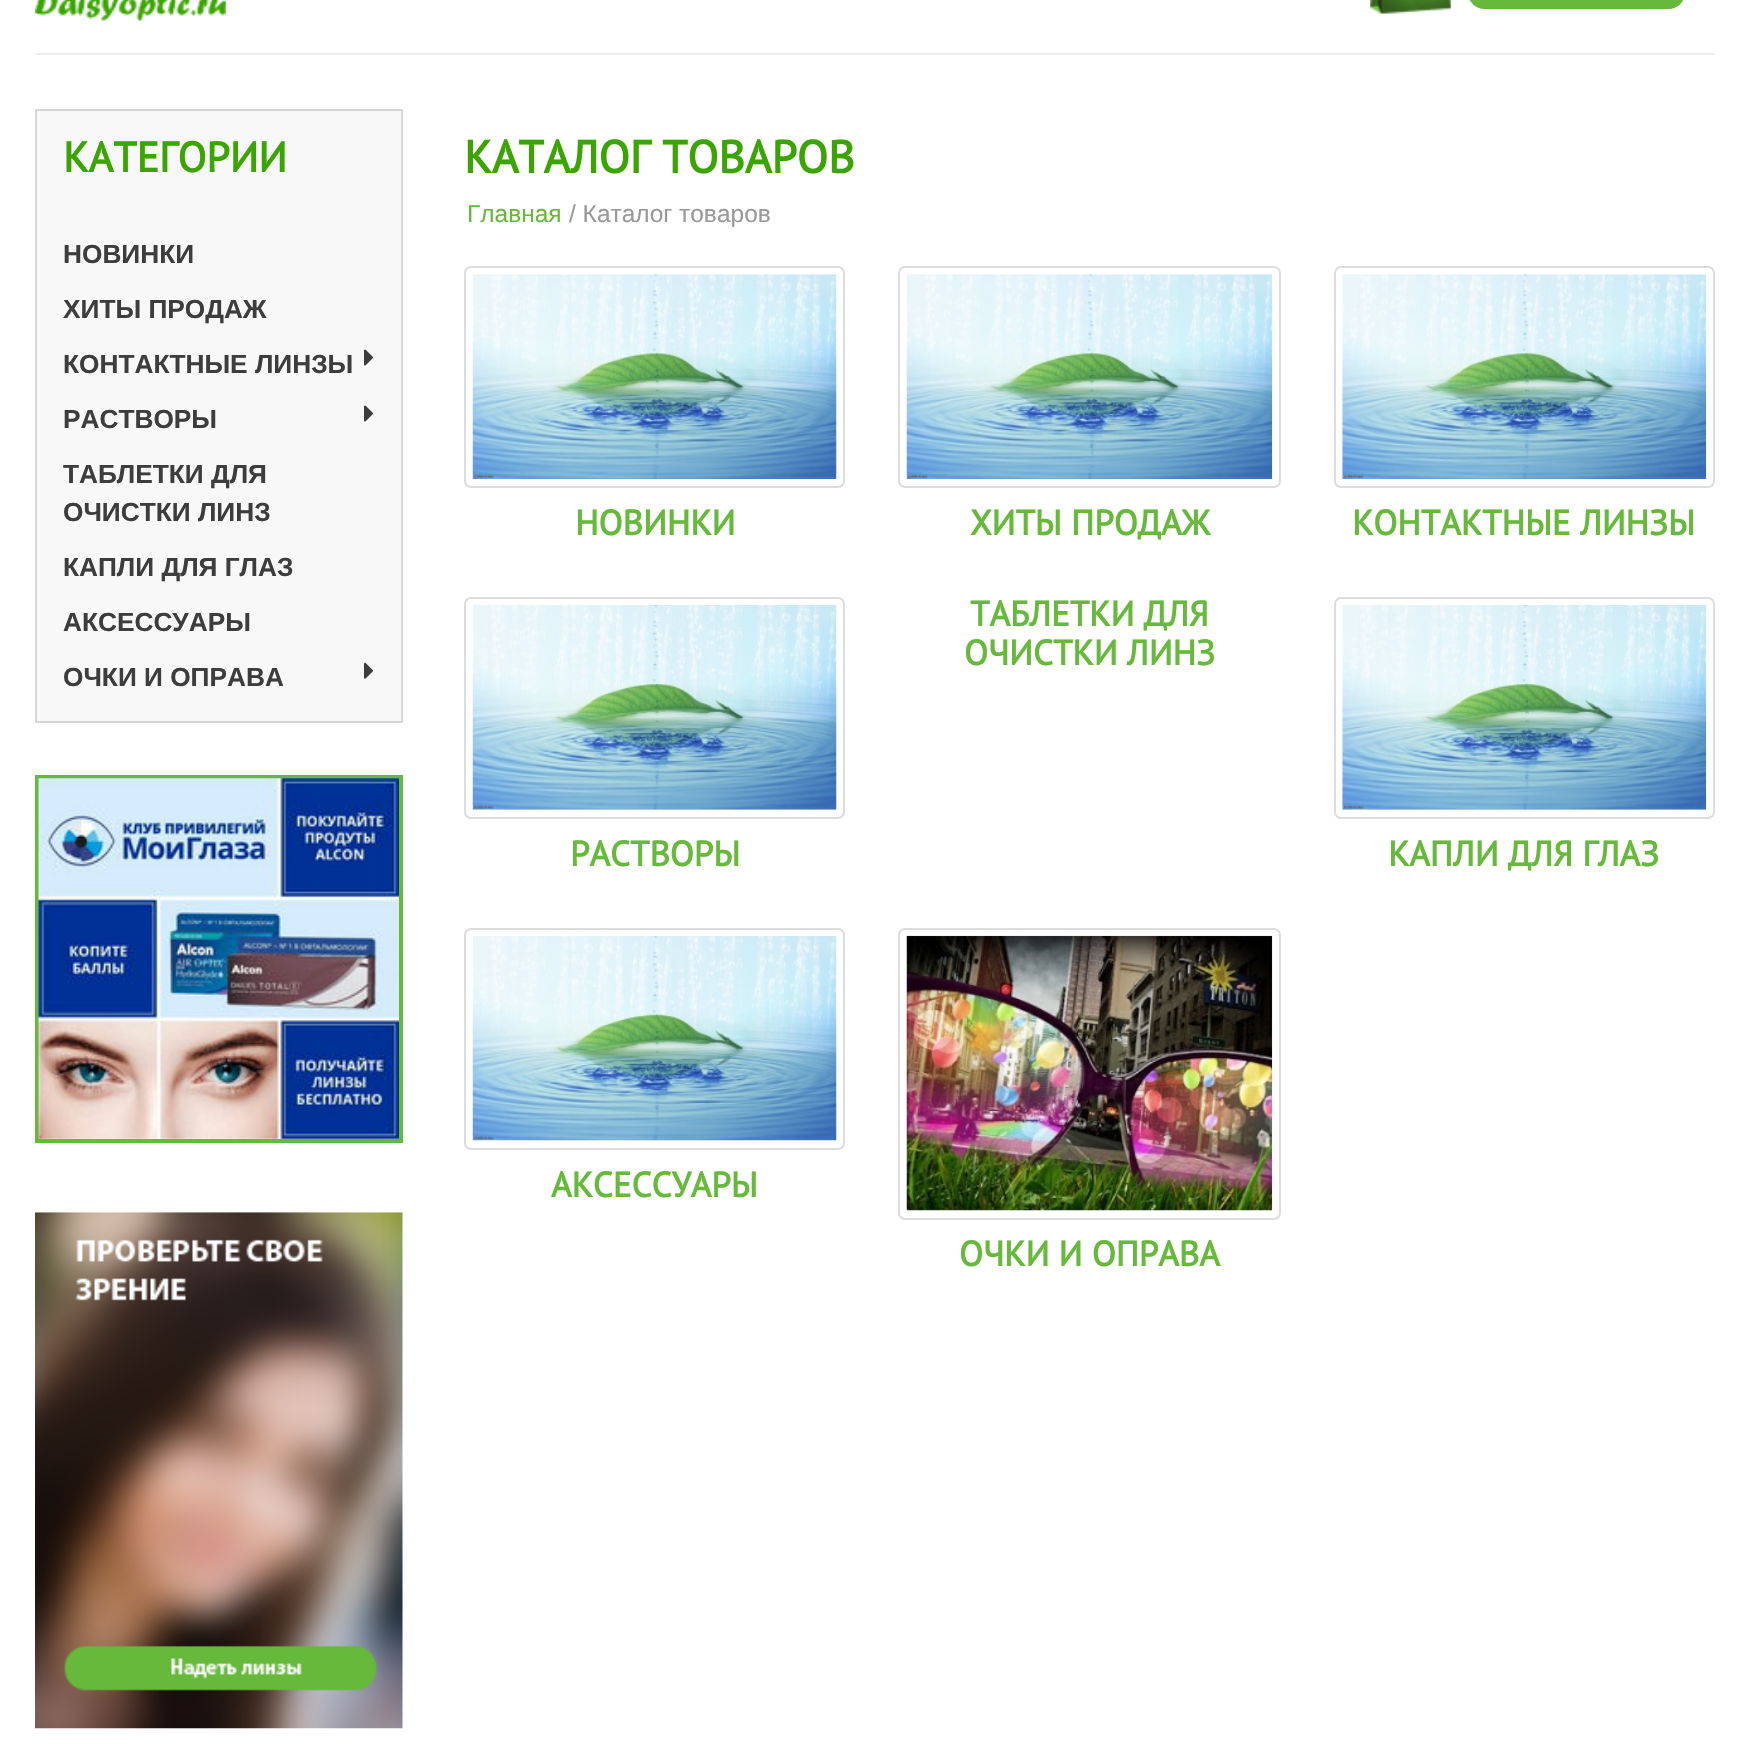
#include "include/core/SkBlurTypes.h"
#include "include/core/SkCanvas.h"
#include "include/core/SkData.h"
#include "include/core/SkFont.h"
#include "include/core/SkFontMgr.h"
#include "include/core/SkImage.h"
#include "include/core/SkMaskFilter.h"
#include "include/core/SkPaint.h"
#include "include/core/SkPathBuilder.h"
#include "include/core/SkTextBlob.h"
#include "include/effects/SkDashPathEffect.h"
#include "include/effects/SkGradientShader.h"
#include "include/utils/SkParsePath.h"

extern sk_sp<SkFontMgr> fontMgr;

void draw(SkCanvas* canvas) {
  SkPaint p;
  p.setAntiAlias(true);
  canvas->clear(SK_ColorWHITE);
  canvas->drawImageRect(SkImages::DeferredFromEncodedData(SkData::MakeFromFileName("images/1.png")), SkRect::MakeLTRB(35, 0, 226, 21), SkSamplingOptions());
  canvas->drawImageRect(SkImages::DeferredFromEncodedData(SkData::MakeFromFileName("images/2.png")), SkRect::MakeLTRB(1370, 0, 1451, 14), SkSamplingOptions());
  p.setColor(SkColorSetRGB(102, 185, 58));
  canvas->drawRoundRect(SkRect::MakeLTRB(1468, -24, 1685, 9), 23.5f, 23.5f, p);
  p.setColor(SkColorSetRGB(238, 238, 238));
  canvas->drawRect(SkRect::MakeLTRB(35, 53, 1715, 55), p);
  p.setColor(SkColorSetRGB(248, 248, 248));
  canvas->drawRect(SkRect::MakeLTRB(36, 110, 402, 722), p);
  p.setStyle(SkPaint::kStroke_Style);
  p.setStrokeWidth(2);
  p.setColor(SkColorSetRGB(215, 215, 215));
  canvas->drawRect(SkRect::MakeLTRB(36, 110, 402, 722), p);
  canvas->drawImageRect(SkImages::DeferredFromEncodedData(SkData::MakeFromFileName("images/3.png")), SkRect::MakeLTRB(364, 349, 373, 366), SkSamplingOptions());
  canvas->drawImageRect(SkImages::DeferredFromEncodedData(SkData::MakeFromFileName("images/3.png")), SkRect::MakeLTRB(364, 405, 373, 422), SkSamplingOptions());
  canvas->drawImageRect(SkImages::DeferredFromEncodedData(SkData::MakeFromFileName("images/4.png")), SkRect::MakeLTRB(364, 662, 373, 679), SkSamplingOptions());
  p.setStrokeWidth(4);
  p.setColor(SkColorSetRGB(102, 185, 58));
  canvas->drawRect(SkRect::MakeLTRB(37, 777, 401, 1141), p);
  canvas->drawImageRect(SkImages::DeferredFromEncodedData(SkData::MakeFromFileName("images/5.png")), SkRect::MakeLTRB(38, 778, 399, 1139), SkSamplingOptions());
  canvas->drawImageRect(SkImages::DeferredFromEncodedData(SkData::MakeFromFileName("images/6.png")), SkRect::MakeLTRB(35, 1212, 403, 1729), SkSamplingOptions());
  p.setStrokeWidth(2);
  p.setColor(SkColorSetRGB(221, 221, 221));
  canvas->drawRoundRect(SkRect::MakeLTRB(465, 267, 844, 487), 6, 6, p);
  canvas->drawImageRect(SkImages::DeferredFromEncodedData(SkData::MakeFromFileName("images/7.png")), SkRect::MakeLTRB(472, 274, 837, 479), SkSamplingOptions());
  canvas->drawRoundRect(SkRect::MakeLTRB(899, 267, 1280, 487), 6, 6, p);
  canvas->drawImageRect(SkImages::DeferredFromEncodedData(SkData::MakeFromFileName("images/8.png")), SkRect::MakeLTRB(906, 274, 1273, 479), SkSamplingOptions());
  canvas->drawRoundRect(SkRect::MakeLTRB(1335, 267, 1714, 487), 6, 6, p);
  canvas->drawImageRect(SkImages::DeferredFromEncodedData(SkData::MakeFromFileName("images/9.png")), SkRect::MakeLTRB(1342, 274, 1707, 479), SkSamplingOptions());
  canvas->drawRoundRect(SkRect::MakeLTRB(465, 598, 844, 818), 6, 6, p);
  canvas->drawImageRect(SkImages::DeferredFromEncodedData(SkData::MakeFromFileName("images/10.png")), SkRect::MakeLTRB(472, 605, 837, 810), SkSamplingOptions());
  canvas->drawRoundRect(SkRect::MakeLTRB(1335, 598, 1714, 818), 6, 6, p);
  canvas->drawImageRect(SkImages::DeferredFromEncodedData(SkData::MakeFromFileName("images/11.png")), SkRect::MakeLTRB(1342, 605, 1707, 810), SkSamplingOptions());
  canvas->drawRoundRect(SkRect::MakeLTRB(465, 929, 844, 1149), 6, 6, p);
  canvas->drawImageRect(SkImages::DeferredFromEncodedData(SkData::MakeFromFileName("images/12.png")), SkRect::MakeLTRB(472, 935, 837, 1141), SkSamplingOptions());
  canvas->drawRoundRect(SkRect::MakeLTRB(899, 929, 1280, 1219), 6, 6, p);
  canvas->drawImageRect(SkImages::DeferredFromEncodedData(SkData::MakeFromFileName("images/13.png")), SkRect::MakeLTRB(906, 935, 1273, 1211), SkSamplingOptions());
  SkFont font1(fontMgr->matchFamilyStyle("PT Sans", SkFontStyle::Bold()), 42);
  font1.setSubpixel(true);
  p.setStyle(SkPaint::kFill_Style);
  p.setColor(SkColorSetRGB(58, 165, 0));
  canvas->drawString("КАТЕГОРИИ", 63, 172, font1, p);
  SkFont font2(fontMgr->matchFamilyStyle("Liberation Sans", SkFontStyle::Bold()), 26.25f);
  font2.setSubpixel(true);
  p.setColor(SkColorSetRGB(61, 61, 61));
  canvas->drawString("НОВИНКИ", 63, 263, font2, p);
  canvas->drawString("ХИТЫ ПРОДАЖ", 63, 318, font2, p);
  canvas->drawString("КОНТАКТНЫЕ ЛИНЗЫ", 63, 373, font2, p);
  canvas->drawString("РАСТВОРЫ", 63, 428, font2, p);
  canvas->drawString("ТАБЛЕТКИ ДЛЯ", 63, 483, font2, p);
  canvas->drawString("ОЧИСТКИ ЛИНЗ", 63, 521, font2, p);
  canvas->drawString("КАПЛИ ДЛЯ ГЛАЗ", 63, 576, font2, p);
  canvas->drawString("АКСЕССУАРЫ", 63, 631, font2, p);
  canvas->drawString("ОЧКИ И ОПРАВА", 63, 686, font2, p);
  SkFont font3(fontMgr->matchFamilyStyle("PT Sans", SkFontStyle::Bold()), 45.5f);
  font3.setSubpixel(true);
  p.setColor(SkColorSetRGB(58, 165, 0));
  canvas->drawString("КАТАЛОГ ТОВАРОВ", 464, 173, font3, p);
  SkFont font4(fontMgr->matchFamilyStyle("Liberation Sans", SkFontStyle::Normal()), 24.5f);
  font4.setSubpixel(true);
  p.setColor(SkColorSetRGB(102, 185, 58));
  canvas->drawString("Главная", 467, 222, font4, p);
  p.setColor(SkColorSetRGB(153, 153, 153));
  canvas->drawString("/ Каталог товаров", 569, 222, font4, p);
  SkFont font5(fontMgr->matchFamilyStyle("PT Sans", SkFontStyle::Bold()), 35);
  font5.setSubpixel(true);
  p.setColor(SkColorSetRGB(102, 185, 58));
  canvas->drawString("НОВИНКИ", 575, 535, font5, p);
  canvas->drawString("ХИТЫ ПРОДАЖ", 970, 535, font5, p);
  canvas->drawString("КОНТАКТНЫЕ ЛИНЗЫ", 1352, 535, font5, p);
  canvas->drawString("ТАБЛЕТКИ ДЛЯ", 970, 626, font5, p);
  canvas->drawString("ОЧИСТКИ ЛИНЗ", 964, 665, font5, p);
  canvas->drawString("РАСТВОРЫ", 570, 866, font5, p);
  canvas->drawString("КАПЛИ ДЛЯ ГЛАЗ", 1388, 866, font5, p);
  canvas->drawString("АКСЕССУАРЫ", 551, 1197, font5, p);
  canvas->drawString("ОЧКИ И ОПРАВА", 959, 1266, font5, p);
}
